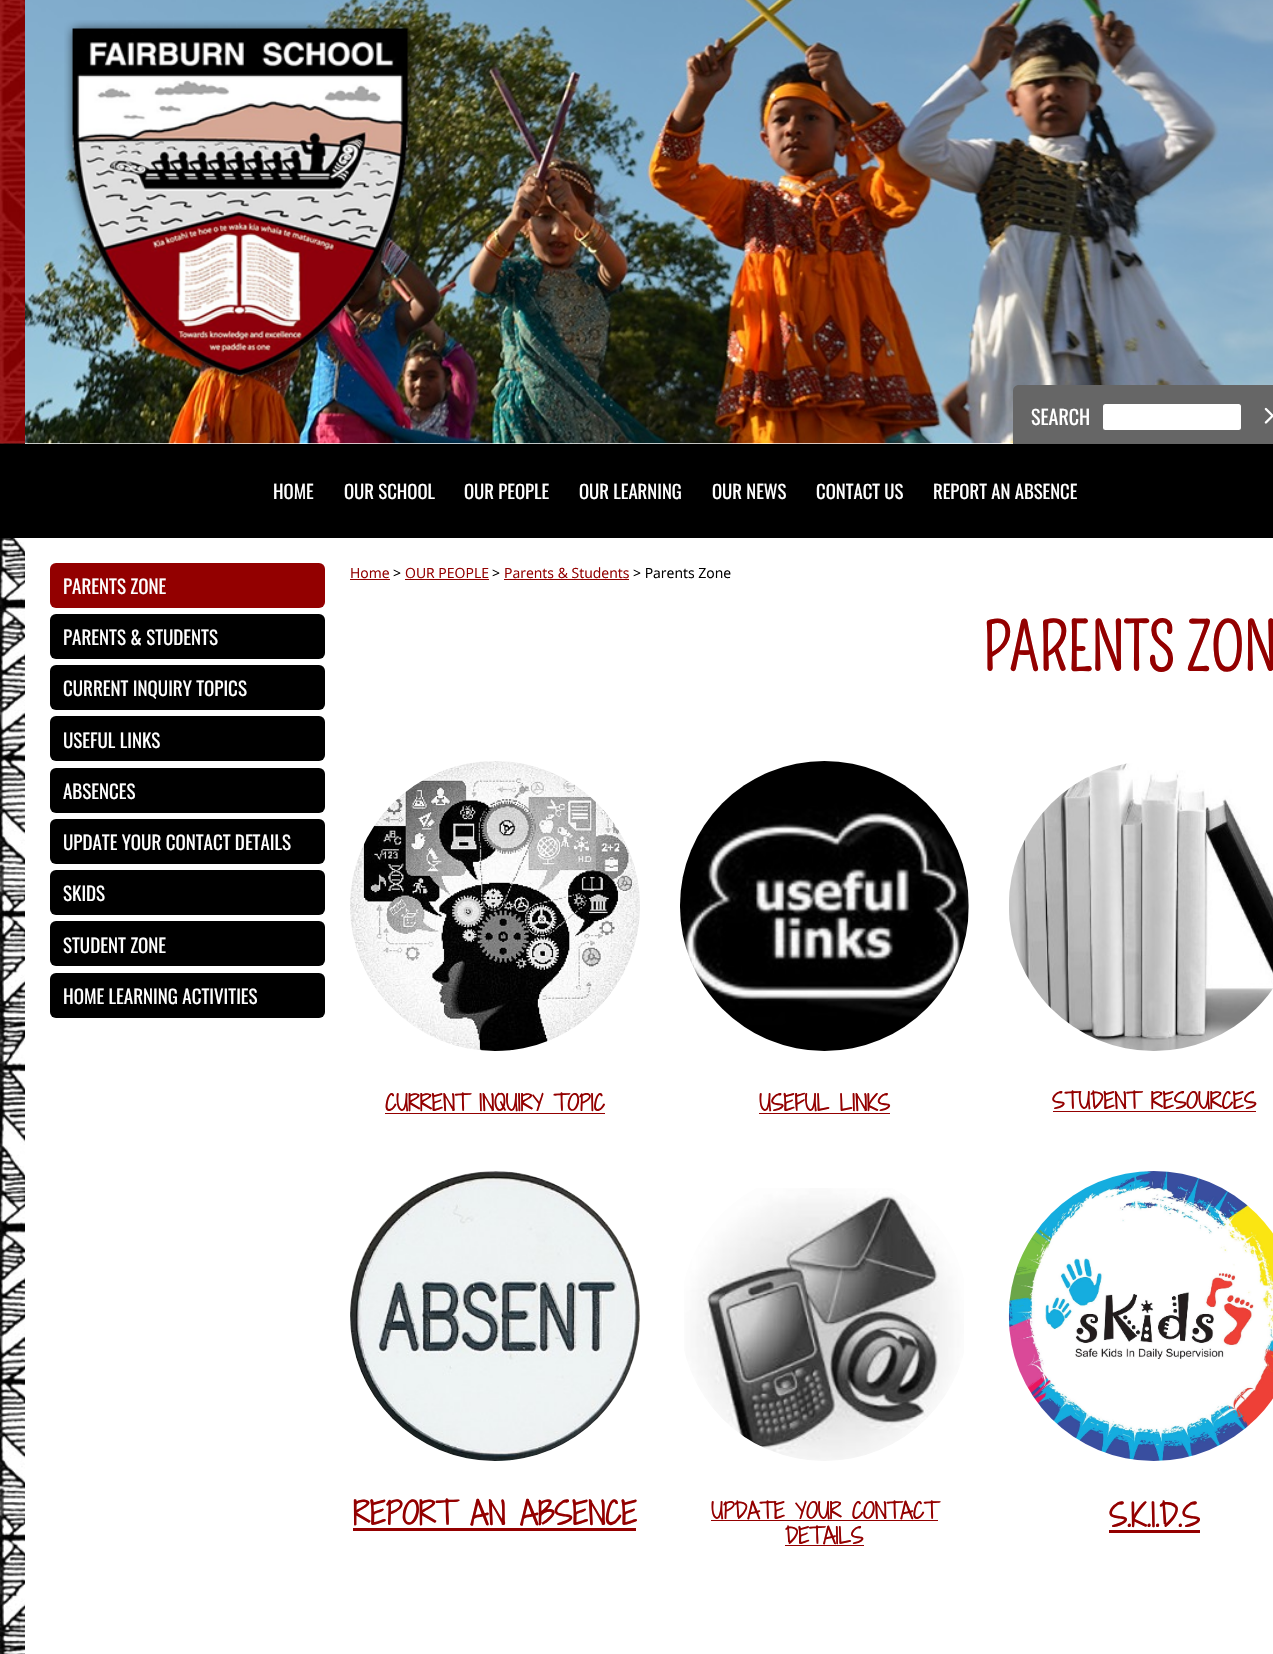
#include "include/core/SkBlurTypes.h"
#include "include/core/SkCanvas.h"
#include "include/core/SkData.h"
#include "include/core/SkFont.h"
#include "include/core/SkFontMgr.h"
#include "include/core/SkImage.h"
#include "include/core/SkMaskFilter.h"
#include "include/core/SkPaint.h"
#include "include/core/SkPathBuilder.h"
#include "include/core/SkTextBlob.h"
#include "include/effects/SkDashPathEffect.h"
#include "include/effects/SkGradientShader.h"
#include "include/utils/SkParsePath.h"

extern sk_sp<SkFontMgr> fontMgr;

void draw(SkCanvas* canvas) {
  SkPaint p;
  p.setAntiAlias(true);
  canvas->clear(SK_ColorWHITE);
  canvas->drawImageRect(SkImages::DeferredFromEncodedData(SkData::MakeFromFileName("images/1.png")), SkRect::MakeLTRB(0, 443, 25, 1654), SkSamplingOptions());
  canvas->drawImageRect(SkImages::DeferredFromEncodedData(SkData::MakeFromFileName("images/2.png")), SkRect::MakeLTRB(0, 0, 25, 444), SkSamplingOptions());
  canvas->drawImageRect(SkImages::DeferredFromEncodedData(SkData::MakeFromFileName("images/3.png")), SkRect::MakeLTRB(25, 0, 1273, 444), SkSamplingOptions());
  canvas->drawImageRect(SkImages::DeferredFromEncodedData(SkData::MakeFromFileName("images/4.png")), SkRect::MakeLTRB(64, 20, 418, 385), SkSamplingOptions());
  p.setColor(SkColorSetRGB(102, 102, 102));
  canvas->drawPath(SkPathBuilder().moveTo(1019, 385).lineTo(1273, 385).cubicTo(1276.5f, 385, 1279, 387.5f, 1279, 391).lineTo(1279, 444).lineTo(1013, 444).lineTo(1013, 391).cubicTo(1013, 387.5f, 1015.5f, 385, 1019, 385).close().detach(), p);
  p.setColor(SK_ColorWHITE);
  canvas->drawRoundRect(SkRect::MakeLTRB(1103, 404, 1241, 430), 2.5f, 2.5f, p);
  canvas->drawImageRect(SkImages::DeferredFromEncodedData(SkData::MakeFromFileName("images/5.png")), SkRect::MakeLTRB(1264, 407, 1273, 424), SkSamplingOptions());
  p.setColor(SK_ColorBLACK);
  canvas->drawRect(SkRect::MakeLTRB(0, 444, 1273, 538), p);
  p.setColor(SkColorSetRGB(147, 0, 0));
  canvas->drawRoundRect(SkRect::MakeLTRB(50, 563, 325, 608), 6, 6, p);
  p.setColor(SK_ColorBLACK);
  canvas->drawRoundRect(SkRect::MakeLTRB(50, 614, 325, 659), 6, 6, p);
  canvas->drawRoundRect(SkRect::MakeLTRB(50, 665, 325, 710), 6, 6, p);
  canvas->drawRoundRect(SkRect::MakeLTRB(50, 716, 325, 761), 6, 6, p);
  canvas->drawRoundRect(SkRect::MakeLTRB(50, 768, 325, 813), 6, 6, p);
  canvas->drawRoundRect(SkRect::MakeLTRB(50, 819, 325, 864), 6, 6, p);
  canvas->drawRoundRect(SkRect::MakeLTRB(50, 870, 325, 915), 6, 6, p);
  canvas->drawRoundRect(SkRect::MakeLTRB(50, 921, 325, 966), 6, 6, p);
  canvas->drawRoundRect(SkRect::MakeLTRB(50, 973, 325, 1018), 6, 6, p);
  p.setColor(SkColorSetRGB(147, 0, 0));
  canvas->drawRect(SkRect::MakeLTRB(350, 579, 390, 580), p);
  canvas->drawRect(SkRect::MakeLTRB(405, 579, 489, 580), p);
  canvas->drawRect(SkRect::MakeLTRB(504, 579, 629, 580), p);
  canvas->drawImageRect(SkImages::DeferredFromEncodedData(SkData::MakeFromFileName("images/6.png")), SkRect::MakeLTRB(350, 761, 640, 1051), SkSamplingOptions());
  canvas->drawRect(SkRect::MakeLTRB(385, 1113, 605, 1114), p);
  canvas->drawImageRect(SkImages::DeferredFromEncodedData(SkData::MakeFromFileName("images/7.png")), SkRect::MakeLTRB(680, 761, 969, 1051), SkSamplingOptions());
  canvas->drawRect(SkRect::MakeLTRB(759, 1113, 890, 1114), p);
  canvas->drawImageRect(SkImages::DeferredFromEncodedData(SkData::MakeFromFileName("images/8.png")), SkRect::MakeLTRB(1009, 763, 1273, 1051), SkSamplingOptions());
  canvas->drawRect(SkRect::MakeLTRB(1053, 1111, 1256, 1112), p);
  canvas->drawImageRect(SkImages::DeferredFromEncodedData(SkData::MakeFromFileName("images/9.png")), SkRect::MakeLTRB(350, 1171, 640, 1461), SkSamplingOptions());
  canvas->drawRect(SkRect::MakeLTRB(353, 1528, 636, 1531), p);
  canvas->drawImageRect(SkImages::DeferredFromEncodedData(SkData::MakeFromFileName("images/10.png")), SkRect::MakeLTRB(684, 1188, 964, 1461), SkSamplingOptions());
  canvas->drawRect(SkRect::MakeLTRB(711, 1520, 938, 1521), p);
  canvas->drawRect(SkRect::MakeLTRB(785, 1545, 864, 1546), p);
  canvas->drawImageRect(SkImages::DeferredFromEncodedData(SkData::MakeFromFileName("images/11.png")), SkRect::MakeLTRB(1008, 1171, 1273, 1461), SkSamplingOptions());
  canvas->drawRect(SkRect::MakeLTRB(1109, 1530, 1200, 1533), p);
  SkFont font1(fontMgr->matchFamilyStyle("Oswald", SkFontStyle::Normal()), 20);
  font1.setSubpixel(true);
  p.setColor(SK_ColorWHITE);
  canvas->drawString("SEARCH", 1031, 425, font1, p);
  SkFont font2(fontMgr->matchFamilyStyle("Oswald", SkFontStyle::Normal()), 18.75f);
  font2.setSubpixel(true);
  canvas->drawString("HOME", 273, 499, font2, p);
  canvas->drawString("OUR SCHOOL", 344, 499, font2, p);
  canvas->drawString("OUR PEOPLE", 464, 499, font2, p);
  canvas->drawString("OUR LEARNING", 579, 499, font2, p);
  canvas->drawString("OUR NEWS", 712, 499, font2, p);
  canvas->drawString("CONTACT US", 816, 499, font2, p);
  canvas->drawString("REPORT AN ABSENCE", 933, 499, font2, p);
  SkFont font3(fontMgr->matchFamilyStyle("Oswald", SkFontStyle::Normal()), 19);
  font3.setSubpixel(true);
  canvas->drawString("PARENTS ZONE", 63, 594, font3, p);
  canvas->drawString("PARENTS & STUDENTS", 63, 645, font3, p);
  canvas->drawString("CURRENT INQUIRY TOPICS", 63, 696, font3, p);
  canvas->drawString("USEFUL LINKS", 63, 748, font3, p);
  canvas->drawString("ABSENCES", 63, 799, font3, p);
  canvas->drawString("UPDATE YOUR CONTACT DETAILS", 63, 850, font3, p);
  canvas->drawString("SKIDS", 63, 901, font3, p);
  canvas->drawString("STUDENT ZONE", 63, 953, font3, p);
  canvas->drawString("HOME LEARNING ACTIVITIES", 63, 1004, font3, p);
  SkFont font4(fontMgr->matchFamilyStyle("Open Sans", SkFontStyle::Normal()), 14);
  font4.setSubpixel(true);
  p.setColor(SkColorSetRGB(147, 0, 0));
  canvas->drawString("Home", 350, 578, font4, p);
  p.setColor(SK_ColorBLACK);
  canvas->drawString(">", 393, 578, font4, p);
  p.setColor(SkColorSetRGB(147, 0, 0));
  canvas->drawString("OUR PEOPLE", 405, 578, font4, p);
  p.setColor(SK_ColorBLACK);
  canvas->drawString(">", 492, 578, font4, p);
  p.setColor(SkColorSetRGB(147, 0, 0));
  canvas->drawString("Parents & Students", 504, 578, font4, p);
  p.setColor(SK_ColorBLACK);
  canvas->drawString("> Parents Zone", 633, 578, font4, p);
  SkFont font5(fontMgr->matchFamilyStyle("Pompiere", SkFontStyle::Bold()), 64);
  font5.setSubpixel(true);
  p.setColor(SkColorSetRGB(147, 0, 0));
  canvas->drawString("PARENTS ZON", 982, 671, font5, p);
  SkFont font6(fontMgr->matchFamilyStyle("Shadows Into Light Two", SkFontStyle::Bold()), 21);
  font6.setSubpixel(true);
  canvas->drawString("CURRENT INQUIRY TOPIC", 385, 1111, font6, p);
  canvas->drawString("USEFUL LINKS", 759, 1111, font6, p);
  canvas->drawString("STUDENT RESOURCES", 1052, 1109, font6, p);
  SkFont font7(fontMgr->matchFamilyStyle("Shadows Into Light Two", SkFontStyle::Bold()), 30);
  font7.setSubpixel(true);
  canvas->drawString("REPORT AN ABSENCE", 353, 1525, font7, p);
  canvas->drawString("UPDATE YOUR CONTACT", 711, 1519, font6, p);
  canvas->drawString("DETAILS", 785, 1544, font6, p);
  canvas->drawString("S.K.I.D.S", 1109, 1527, font7, p);
}
